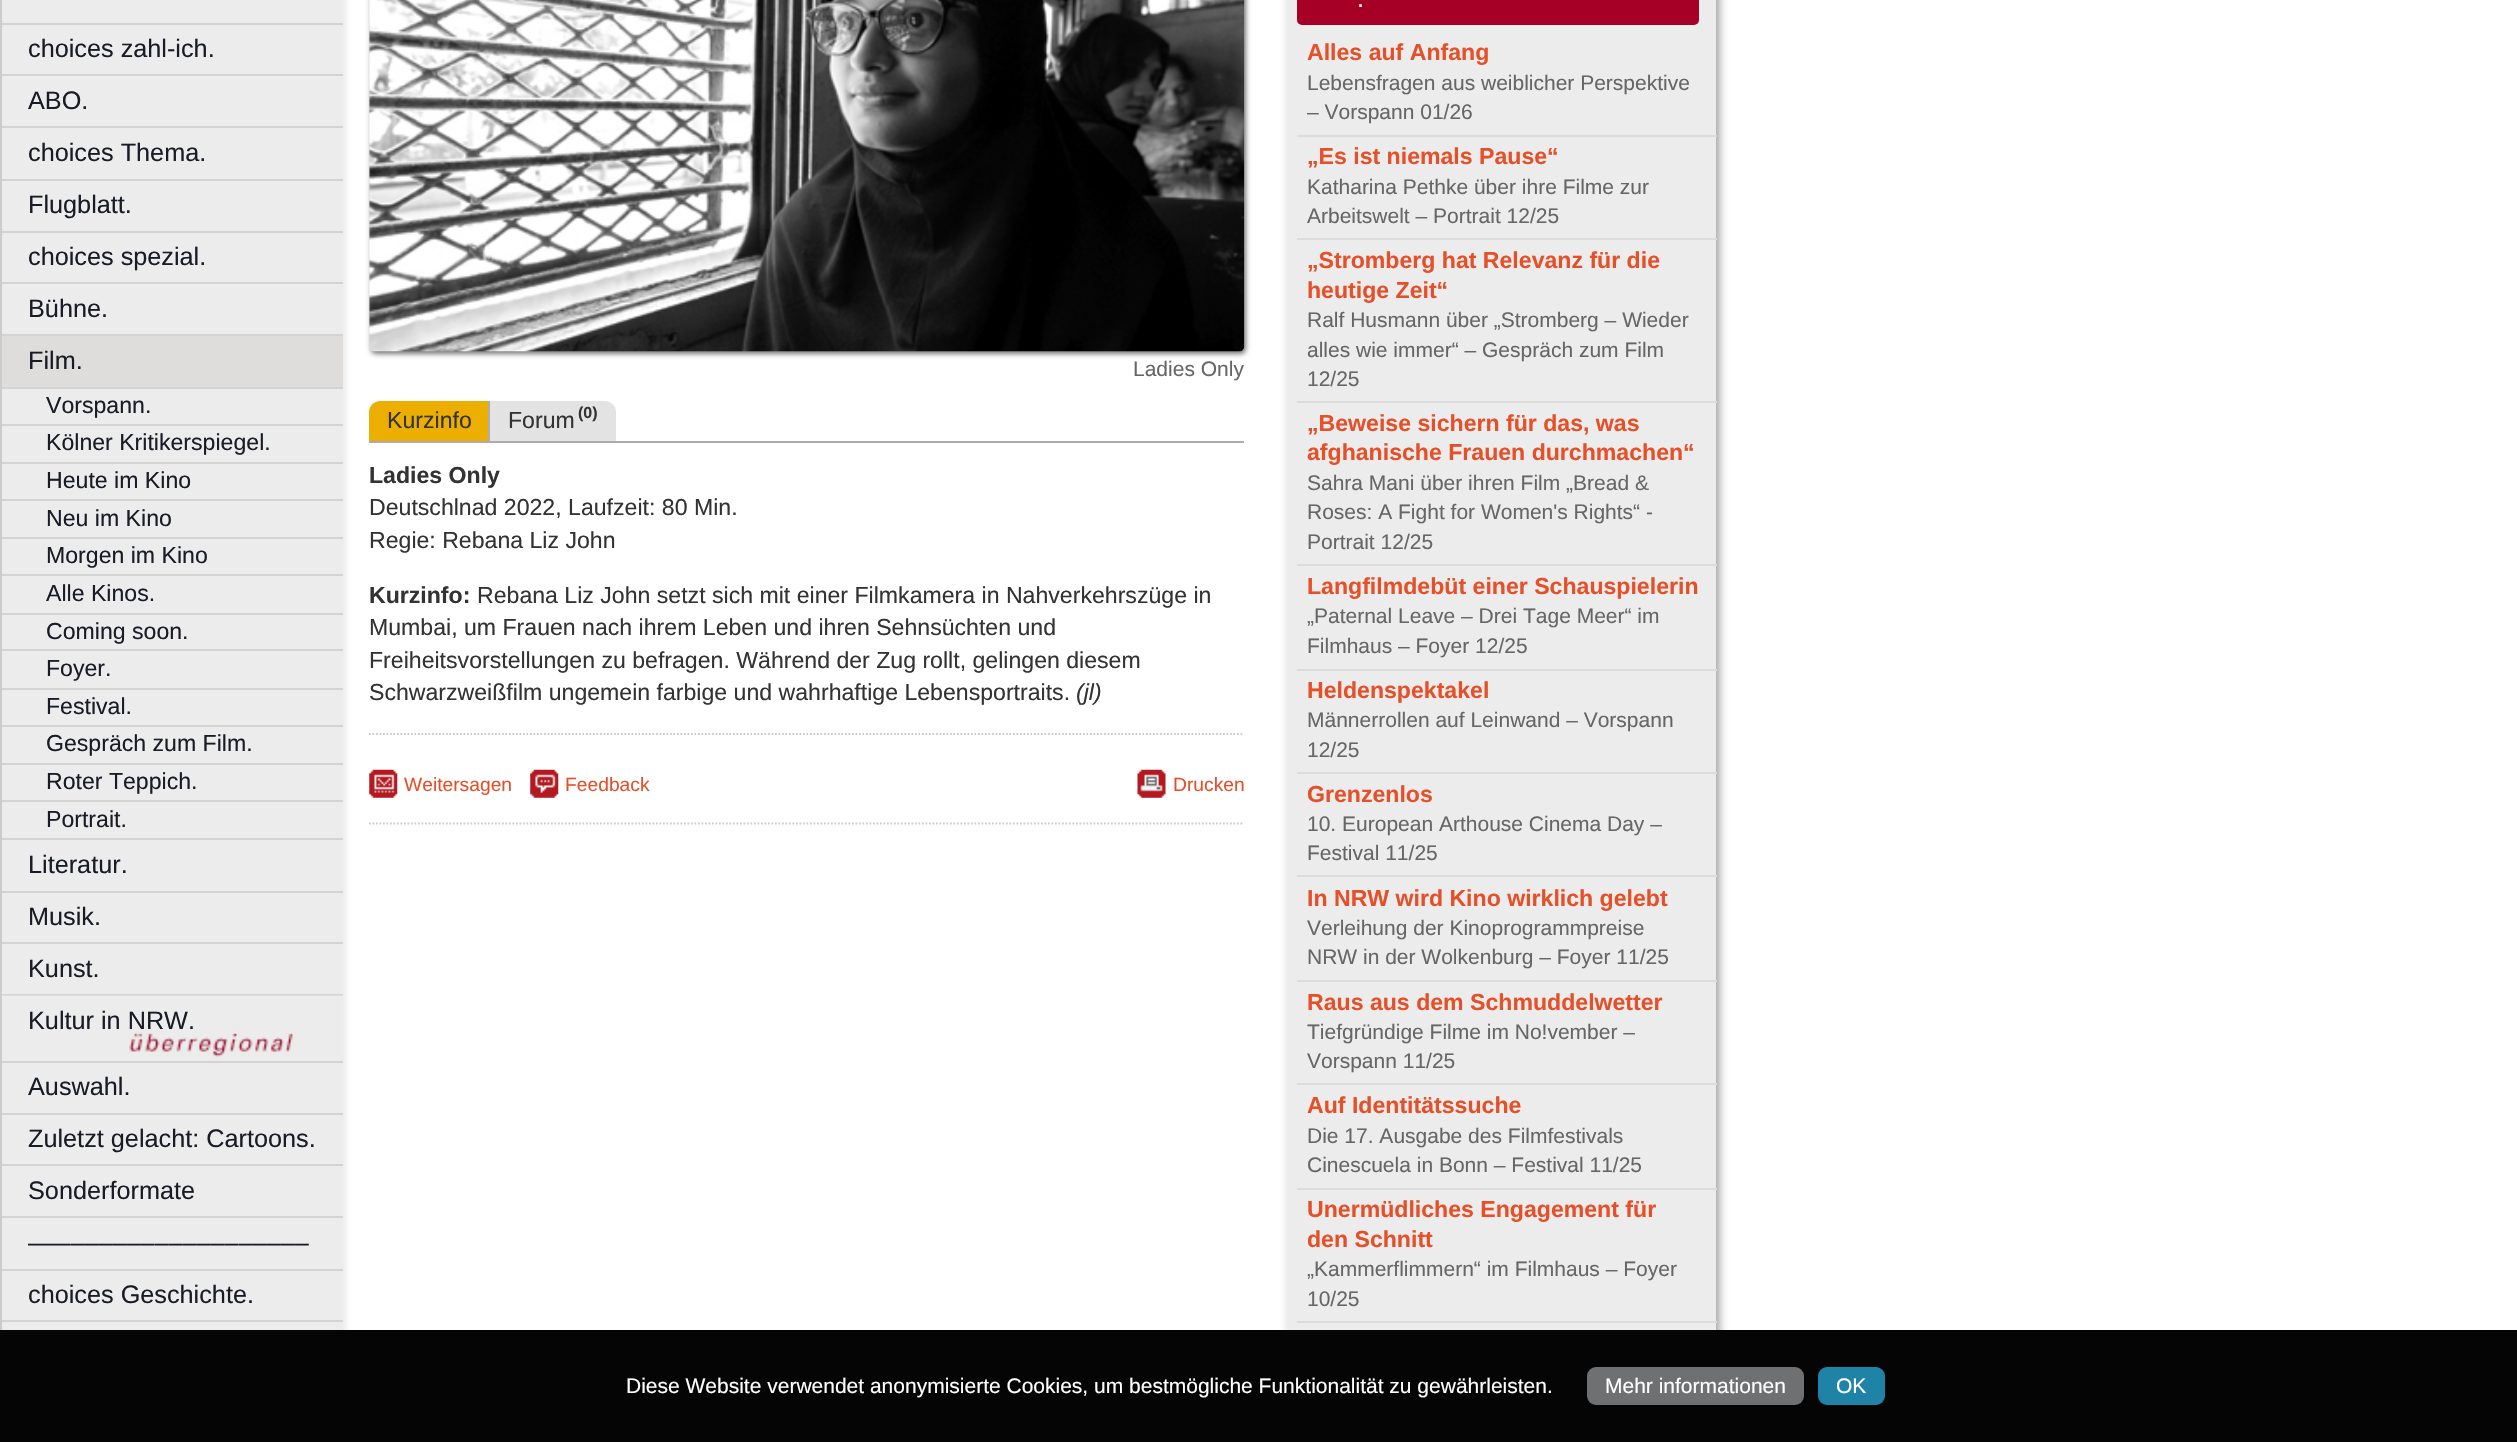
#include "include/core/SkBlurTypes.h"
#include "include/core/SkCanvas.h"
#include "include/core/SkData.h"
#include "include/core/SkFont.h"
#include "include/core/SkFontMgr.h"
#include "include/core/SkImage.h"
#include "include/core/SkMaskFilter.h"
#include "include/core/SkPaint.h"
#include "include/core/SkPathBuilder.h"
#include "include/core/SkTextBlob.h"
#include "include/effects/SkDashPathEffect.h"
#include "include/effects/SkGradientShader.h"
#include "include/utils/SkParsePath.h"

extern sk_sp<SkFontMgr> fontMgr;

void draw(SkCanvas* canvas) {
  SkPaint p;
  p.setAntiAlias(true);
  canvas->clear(SK_ColorWHITE);
  p.setColor(SkColorSetRGB(153, 153, 153));
  p.setMaskFilter(SkMaskFilter::MakeBlur(kNormal_SkBlurStyle, 4.5f));
  canvas->drawRect(SkRect::MakeLTRB(2, -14, 1719, 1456), p);
  p.setMaskFilter(nullptr);
  canvas->drawImageRect(SkImages::DeferredFromEncodedData(SkData::MakeFromFileName("images/1.png")), SkRect::MakeLTRB(2, 0, 1716, 1330), SkSamplingOptions());
  p.setColor(SkColorSetRGB(204, 204, 204));
  canvas->drawRect(SkRect::MakeLTRB(0, 0, 2, 1330), p);
  p.setColor(SkColorSetRGB(211, 211, 211));
  canvas->drawRect(SkRect::MakeLTRB(2, 23, 343, 25), p);
  canvas->drawRect(SkRect::MakeLTRB(2, 74, 343, 76), p);
  canvas->drawRect(SkRect::MakeLTRB(2, 126, 343, 128), p);
  canvas->drawRect(SkRect::MakeLTRB(2, 179, 343, 181), p);
  canvas->drawRect(SkRect::MakeLTRB(2, 231, 343, 233), p);
  canvas->drawRect(SkRect::MakeLTRB(2, 282, 343, 284), p);
  canvas->drawRect(SkRect::MakeLTRB(2, 334, 343, 336), p);
  p.setColor(SkColorSetRGB(222, 221, 220));
  canvas->drawRect(SkRect::MakeLTRB(2, 336, 343, 387), p);
  p.setColor(SkColorSetRGB(211, 211, 211));
  canvas->drawRect(SkRect::MakeLTRB(2, 387, 343, 389), p);
  canvas->drawRect(SkRect::MakeLTRB(2, 424, 343, 426), p);
  canvas->drawRect(SkRect::MakeLTRB(2, 462, 343, 464), p);
  canvas->drawRect(SkRect::MakeLTRB(2, 499, 343, 501), p);
  canvas->drawRect(SkRect::MakeLTRB(2, 537, 343, 539), p);
  canvas->drawRect(SkRect::MakeLTRB(2, 574, 343, 576), p);
  canvas->drawRect(SkRect::MakeLTRB(2, 613, 343, 615), p);
  canvas->drawRect(SkRect::MakeLTRB(2, 649, 343, 651), p);
  canvas->drawRect(SkRect::MakeLTRB(2, 688, 343, 690), p);
  canvas->drawRect(SkRect::MakeLTRB(2, 725, 343, 727), p);
  canvas->drawRect(SkRect::MakeLTRB(2, 763, 343, 765), p);
  canvas->drawRect(SkRect::MakeLTRB(2, 800, 343, 802), p);
  canvas->drawRect(SkRect::MakeLTRB(2, 838, 343, 840), p);
  canvas->drawRect(SkRect::MakeLTRB(2, 891, 343, 893), p);
  canvas->drawRect(SkRect::MakeLTRB(2, 942, 343, 944), p);
  canvas->drawRect(SkRect::MakeLTRB(2, 994, 343, 996), p);
  canvas->drawImageRect(SkImages::DeferredFromEncodedData(SkData::MakeFromFileName("images/2.png")), SkRect::MakeLTRB(2, 995, 343, 1058), SkSamplingOptions());
  canvas->drawRect(SkRect::MakeLTRB(2, 1061, 343, 1063), p);
  canvas->drawRect(SkRect::MakeLTRB(2, 1113, 343, 1115), p);
  canvas->drawRect(SkRect::MakeLTRB(2, 1164, 343, 1166), p);
  canvas->drawRect(SkRect::MakeLTRB(2, 1216, 343, 1218), p);
  canvas->drawRect(SkRect::MakeLTRB(2, 1269, 343, 1271), p);
  canvas->drawRect(SkRect::MakeLTRB(2, 1320, 343, 1322), p);
  p.setColor(SkColorSetRGB(119, 119, 119));
  p.setMaskFilter(SkMaskFilter::MakeBlur(kNormal_SkBlurStyle, 2.5f));
  canvas->drawRoundRect(SkRect::MakeLTRB(371, -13, 1246, 354), 5, 5, p);
  p.setMaskFilter(nullptr);
  canvas->drawImageRect(SkImages::DeferredFromEncodedData(SkData::MakeFromFileName("images/3.png")), SkRect::MakeLTRB(369, 0, 1245, 352), SkSamplingOptions());
  p.setColor(SkColorSetRGB(236, 174, 0));
  canvas->drawPath(SkPathBuilder().moveTo(380, 401).lineTo(490, 401).lineTo(490, 441).lineTo(369, 441).lineTo(369, 412).cubicTo(369, 406, 374, 401, 380, 401).close().detach(), p);
  p.setColor(SkColorSetRGB(172, 172, 172));
  canvas->drawRect(SkRect::MakeLTRB(488, 401, 490, 441), p);
  p.setColor(SkColorSetRGB(227, 227, 227));
  canvas->drawPath(SkPathBuilder().moveTo(490, 401).lineTo(605, 401).cubicTo(611, 401, 616, 406, 616, 412).lineTo(616, 441).lineTo(490, 441).close().detach(), p);
  p.setColor(SkColorSetRGB(172, 172, 172));
  canvas->drawRect(SkRect::MakeLTRB(369, 441, 1244, 443), p);
  p.setStyle(SkPaint::kStroke_Style);
  p.setStrokeWidth(1.8f);
  p.setColor(SkColorSetRGB(204, 204, 204));
  p.setPathEffect(SkDashPathEffect::Make({{1.75f, 1.75f}}, 0));
  canvas->drawPath(SkPathBuilder().moveTo(369, 734).lineTo(1244, 734).detach(), p);
  p.setPathEffect(nullptr);
  canvas->drawImageRect(SkImages::DeferredFromEncodedData(SkData::MakeFromFileName("images/4.png")), SkRect::MakeLTRB(369, 769, 398, 798), SkSamplingOptions());
  canvas->drawImageRect(SkImages::DeferredFromEncodedData(SkData::MakeFromFileName("images/5.png")), SkRect::MakeLTRB(530, 769, 559, 798), SkSamplingOptions());
  canvas->drawImageRect(SkImages::DeferredFromEncodedData(SkData::MakeFromFileName("images/6.png")), SkRect::MakeLTRB(1137, 769, 1166, 798), SkSamplingOptions());
  p.setPathEffect(SkDashPathEffect::Make({{1.75f, 1.75f}}, 0));
  canvas->drawPath(SkPathBuilder().moveTo(369, 823.5f).lineTo(1244, 823.5f).detach(), p);
  p.setPathEffect(nullptr);
  p.setStyle(SkPaint::kFill_Style);
  p.setColor(SkColorSetRGB(166, 0, 39));
  canvas->drawRoundRect(SkRect::MakeLTRB(1297, -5, 1699, 25), 5, 5, p);
  p.setColor(SkColorSetRGB(220, 220, 220));
  canvas->drawRect(SkRect::MakeLTRB(1297, 135, 1717, 137), p);
  canvas->drawRect(SkRect::MakeLTRB(1297, 238, 1717, 240), p);
  canvas->drawRect(SkRect::MakeLTRB(1297, 401, 1717, 403), p);
  canvas->drawRect(SkRect::MakeLTRB(1297, 564, 1717, 566), p);
  canvas->drawRect(SkRect::MakeLTRB(1297, 669, 1717, 671), p);
  canvas->drawRect(SkRect::MakeLTRB(1297, 772, 1717, 774), p);
  canvas->drawRect(SkRect::MakeLTRB(1297, 875, 1717, 877), p);
  canvas->drawRect(SkRect::MakeLTRB(1297, 980, 1717, 982), p);
  canvas->drawRect(SkRect::MakeLTRB(1297, 1083, 1717, 1085), p);
  canvas->drawRect(SkRect::MakeLTRB(1297, 1188, 1717, 1190), p);
  canvas->drawRect(SkRect::MakeLTRB(1297, 1321, 1717, 1323), p);
  p.setColor(SkColorSetRGB(5, 5, 5));
  canvas->drawRect(SkRect::MakeLTRB(0, 1330, 2517, 1442), p);
  p.setColor(SkColorSetRGB(110, 112, 113));
  canvas->drawRoundRect(SkRect::MakeLTRB(1587, 1367, 1804, 1405), 9, 9, p);
  p.setColor(SkColorSetRGB(31, 131, 168));
  canvas->drawRoundRect(SkRect::MakeLTRB(1818, 1367, 1885, 1405), 9, 9, p);
  SkFont font1(fontMgr->matchFamilyStyle("Liberation Sans", SkFontStyle::Normal()), 25.25f);
  font1.setSubpixel(true);
  p.setColor(SkColorSetRGB(25, 28, 38));
  canvas->drawString("choices zahl-ich.", 28, 57, font1, p);
  canvas->drawString("ABO.", 28, 109, font1, p);
  canvas->drawString("choices Thema.", 28, 161, font1, p);
  canvas->drawString("Flugblatt.", 28, 213, font1, p);
  canvas->drawString("choices spezial.", 28, 265, font1, p);
  canvas->drawString("Bühne.", 28, 317, font1, p);
  canvas->drawString("Film.", 28, 369, font1, p);
  SkFont font2(fontMgr->matchFamilyStyle("Liberation Sans", SkFontStyle::Normal()), 23.1f);
  font2.setSubpixel(true);
  canvas->drawString("Vorspann.", 46, 413, font2, p);
  canvas->drawString("Kölner Kritikerspiegel.", 46, 450, font2, p);
  canvas->drawString("Heute im Kino", 46, 488, font2, p);
  canvas->drawString("Neu im Kino", 46, 526, font2, p);
  canvas->drawString("Morgen im Kino", 46, 563, font2, p);
  canvas->drawString("Alle Kinos.", 46, 601, font2, p);
  canvas->drawString("Coming soon.", 46, 639, font2, p);
  canvas->drawString("Foyer.", 46, 676, font2, p);
  canvas->drawString("Festival.", 46, 714, font2, p);
  canvas->drawString("Gespräch zum Film.", 46, 751, font2, p);
  canvas->drawString("Roter Teppich.", 46, 789, font2, p);
  canvas->drawString("Portrait.", 46, 827, font2, p);
  canvas->drawString("Literatur.", 28, 873, font1, p);
  canvas->drawString("Musik.", 28, 925, font1, p);
  canvas->drawString("Kunst.", 28, 977, font1, p);
  canvas->drawString("Kultur in NRW.", 28, 1029, font1, p);
  canvas->drawString("Auswahl.", 28, 1095, font1, p);
  canvas->drawString("Zuletzt gelacht: Cartoons.", 28, 1147, font1, p);
  canvas->drawString("Sonderformate", 28, 1199, font1, p);
  canvas->drawString("––––––––––––––––––––", 28, 1251, font1, p);
  canvas->drawString("choices Geschichte.", 28, 1303, font1, p);
  SkFont font3(fontMgr->matchFamilyStyle("Liberation Sans", SkFontStyle::Normal()), 21);
  font3.setSubpixel(true);
  p.setColor(SkColorSetRGB(102, 102, 102));
  canvas->drawString("Ladies Only", 1133, 376, font3, p);
  p.setColor(SkColorSetRGB(51, 51, 51));
  canvas->drawString("Kurzinfo", 387, 428, font2, p);
  canvas->drawString("Forum", 508, 428, font2, p);
  SkFont font4(fontMgr->matchFamilyStyle("Liberation Sans", SkFontStyle::Bold()), 16);
  font4.setSubpixel(true);
  canvas->drawString("(0)", 578, 418, font4, p);
  SkFont font5(fontMgr->matchFamilyStyle("Liberation Sans", SkFontStyle::Bold()), 23.1f);
  font5.setSubpixel(true);
  canvas->drawString("Ladies Only", 369, 483, font5, p);
  canvas->drawString("Deutschlnad 2022, Laufzeit: 80 Min.", 369, 515, font2, p);
  canvas->drawString("Regie: Rebana Liz John", 369, 548, font2, p);
  canvas->drawString("Kurzinfo:", 369, 603, font5, p);
  canvas->drawString("Rebana Liz John setzt sich mit einer Filmkamera in Nahverkehrszüge in", 477, 603, font2, p);
  canvas->drawString("Mumbai, um Frauen nach ihrem Leben und ihren Sehnsüchten und", 369, 635, font2, p);
  canvas->drawString("Freiheitsvorstellungen zu befragen. Während der Zug rollt, gelingen diesem", 369, 668, font2, p);
  canvas->drawString("Schwarzweißfilm ungemein farbige und wahrhaftige Lebensportraits.", 369, 700, font2, p);
  SkFont font6(fontMgr->matchFamilyStyle("Liberation Sans", SkFontStyle::Italic()), 23.1f);
  font6.setSubpixel(true);
  canvas->drawString("(jl)", 1076, 700, font6, p);
  SkFont font7(fontMgr->matchFamilyStyle("Liberation Sans", SkFontStyle::Normal()), 19.25f);
  font7.setSubpixel(true);
  p.setColor(SkColorSetRGB(229, 80, 41));
  canvas->drawString("Weitersagen", 404, 791, font7, p);
  canvas->drawString("Feedback", 565, 791, font7, p);
  canvas->drawString("Drucken", 1173, 791, font7, p);
  p.setColor(SK_ColorWHITE);
  canvas->drawString(".", 1357, 7, font1, p);
  p.setColor(SkColorSetRGB(229, 80, 41));
  canvas->drawString("Alles auf Anfang", 1307, 60, font5, p);
  p.setColor(SkColorSetRGB(102, 102, 102));
  canvas->drawString("Lebensfragen aus weiblicher Perspektive", 1307, 90, font3, p);
  canvas->drawString("– Vorspann 01/26", 1307, 119, font3, p);
  p.setColor(SkColorSetRGB(229, 80, 41));
  canvas->drawString("„Es ist niemals Pause“", 1307, 164, font5, p);
  p.setColor(SkColorSetRGB(102, 102, 102));
  canvas->drawString("Katharina Pethke über ihre Filme zur", 1307, 194, font3, p);
  canvas->drawString("Arbeitswelt – Portrait 12/25", 1307, 223, font3, p);
  p.setColor(SkColorSetRGB(229, 80, 41));
  canvas->drawString("„Stromberg hat Relevanz für die", 1307, 268, font5, p);
  canvas->drawString("heutige Zeit“", 1307, 298, font5, p);
  p.setColor(SkColorSetRGB(102, 102, 102));
  canvas->drawString("Ralf Husmann über „Stromberg – Wieder", 1307, 327, font3, p);
  canvas->drawString("alles wie immer“ – Gespräch zum Film", 1307, 357, font3, p);
  canvas->drawString("12/25", 1307, 386, font3, p);
  p.setColor(SkColorSetRGB(229, 80, 41));
  canvas->drawString("„Beweise sichern für das, was", 1307, 431, font5, p);
  canvas->drawString("afghanische Frauen durchmachen“", 1307, 460, font5, p);
  p.setColor(SkColorSetRGB(102, 102, 102));
  canvas->drawString("Sahra Mani über ihren Film „Bread &", 1307, 490, font3, p);
  canvas->drawString("Roses: A Fight for Women's Rights“ -", 1307, 519, font3, p);
  canvas->drawString("Portrait 12/25", 1307, 549, font3, p);
  p.setColor(SkColorSetRGB(229, 80, 41));
  canvas->drawString("Langfilmdebüt einer Schauspielerin", 1307, 594, font5, p);
  p.setColor(SkColorSetRGB(102, 102, 102));
  canvas->drawString("„Paternal Leave – Drei Tage Meer“ im", 1307, 623, font3, p);
  canvas->drawString("Filmhaus – Foyer 12/25", 1307, 653, font3, p);
  p.setColor(SkColorSetRGB(229, 80, 41));
  canvas->drawString("Heldenspektakel", 1307, 698, font5, p);
  p.setColor(SkColorSetRGB(102, 102, 102));
  canvas->drawString("Männerrollen auf Leinwand – Vorspann", 1307, 727, font3, p);
  canvas->drawString("12/25", 1307, 757, font3, p);
  p.setColor(SkColorSetRGB(229, 80, 41));
  canvas->drawString("Grenzenlos", 1307, 802, font5, p);
  p.setColor(SkColorSetRGB(102, 102, 102));
  canvas->drawString("10. European Arthouse Cinema Day –", 1307, 831, font3, p);
  canvas->drawString("Festival 11/25", 1307, 860, font3, p);
  p.setColor(SkColorSetRGB(229, 80, 41));
  canvas->drawString("In NRW wird Kino wirklich gelebt", 1307, 906, font5, p);
  p.setColor(SkColorSetRGB(102, 102, 102));
  canvas->drawString("Verleihung der Kinoprogrammpreise", 1307, 935, font3, p);
  canvas->drawString("NRW in der Wolkenburg – Foyer 11/25", 1307, 964, font3, p);
  p.setColor(SkColorSetRGB(229, 80, 41));
  canvas->drawString("Raus aus dem Schmuddelwetter", 1307, 1010, font5, p);
  p.setColor(SkColorSetRGB(102, 102, 102));
  canvas->drawString("Tiefgründige Filme im No!vember –", 1307, 1039, font3, p);
  canvas->drawString("Vorspann 11/25", 1307, 1068, font3, p);
  p.setColor(SkColorSetRGB(229, 80, 41));
  canvas->drawString("Auf Identitätssuche", 1307, 1113, font5, p);
  p.setColor(SkColorSetRGB(102, 102, 102));
  canvas->drawString("Die 17. Ausgabe des Filmfestivals", 1307, 1143, font3, p);
  canvas->drawString("Cinescuela in Bonn – Festival 11/25", 1307, 1172, font3, p);
  p.setColor(SkColorSetRGB(229, 80, 41));
  canvas->drawString("Unermüdliches Engagement für", 1307, 1217, font5, p);
  canvas->drawString("den Schnitt", 1307, 1247, font5, p);
  p.setColor(SkColorSetRGB(102, 102, 102));
  canvas->drawString("„Kammerflimmern“ im Filmhaus – Foyer", 1307, 1276, font3, p);
  canvas->drawString("10/25", 1307, 1306, font3, p);
  p.setColor(SK_ColorWHITE);
  canvas->drawString("Diese Website verwendet anonymisierte Cookies, um bestmögliche Funktionalität zu gewährleisten.", 626, 1393, font3, p);
  canvas->drawString("Mehr informationen", 1605, 1393, font3, p);
  canvas->drawString("OK", 1836, 1393, font3, p);
}
